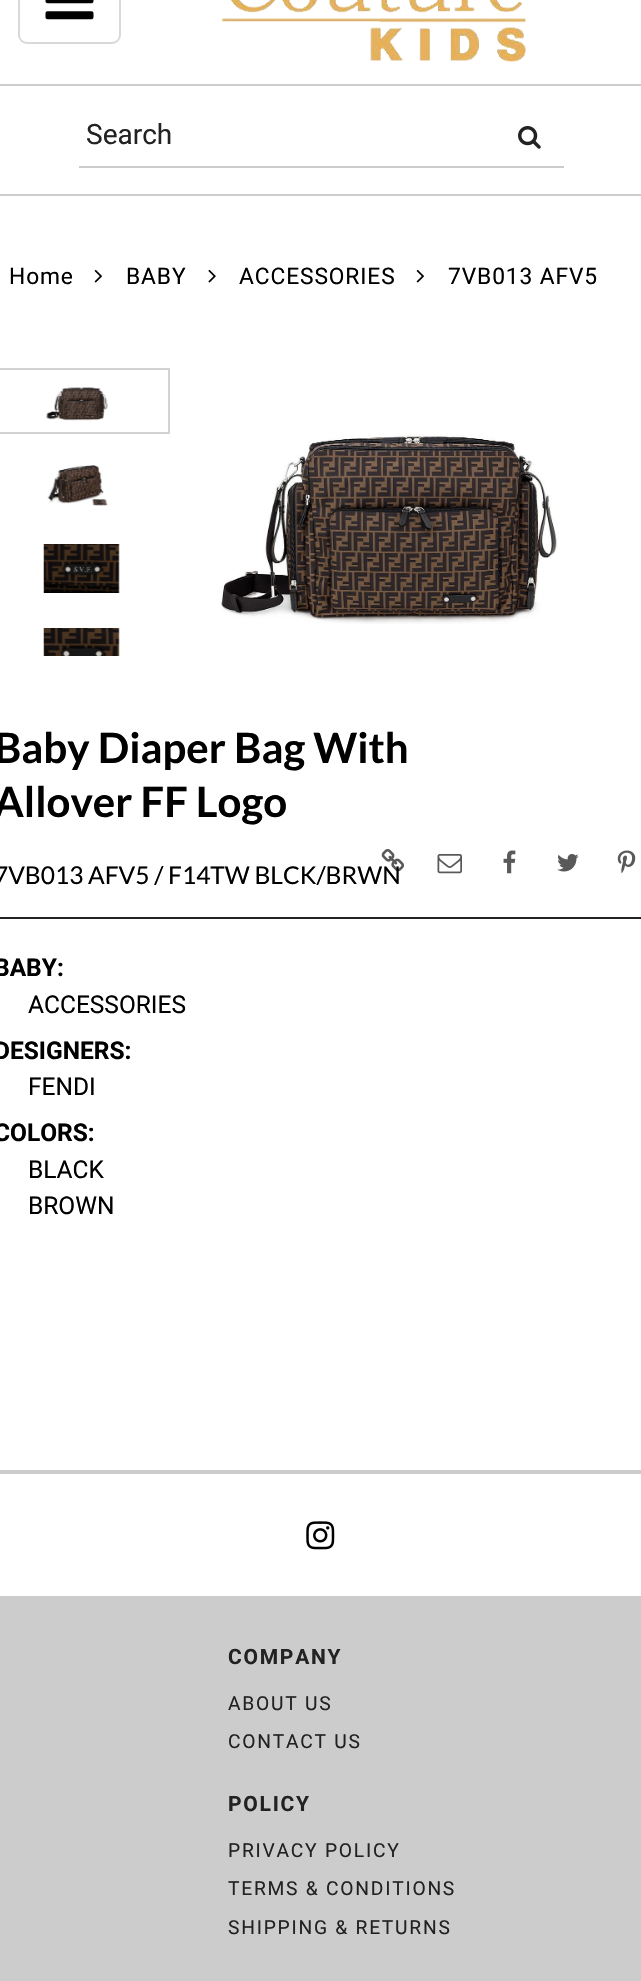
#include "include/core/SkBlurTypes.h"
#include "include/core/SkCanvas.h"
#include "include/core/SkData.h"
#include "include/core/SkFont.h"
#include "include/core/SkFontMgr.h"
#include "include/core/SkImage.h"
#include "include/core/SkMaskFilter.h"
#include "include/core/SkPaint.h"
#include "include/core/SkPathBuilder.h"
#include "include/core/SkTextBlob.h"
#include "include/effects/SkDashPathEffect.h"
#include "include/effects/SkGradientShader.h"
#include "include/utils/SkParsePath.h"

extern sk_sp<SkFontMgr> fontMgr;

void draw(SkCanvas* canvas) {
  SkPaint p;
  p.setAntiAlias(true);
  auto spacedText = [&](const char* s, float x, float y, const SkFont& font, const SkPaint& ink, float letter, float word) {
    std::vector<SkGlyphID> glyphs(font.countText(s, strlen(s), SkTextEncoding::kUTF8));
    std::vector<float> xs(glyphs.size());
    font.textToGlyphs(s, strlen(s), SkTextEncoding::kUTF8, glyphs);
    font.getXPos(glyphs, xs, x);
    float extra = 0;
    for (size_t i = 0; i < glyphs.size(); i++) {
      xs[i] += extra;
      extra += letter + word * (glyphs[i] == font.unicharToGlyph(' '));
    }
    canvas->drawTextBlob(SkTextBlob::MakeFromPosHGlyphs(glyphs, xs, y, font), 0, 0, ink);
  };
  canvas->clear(SK_ColorWHITE);
  p.setStyle(SkPaint::kStroke_Style);
  p.setStrokeWidth(2);
  p.setColor(SkColorSetRGB(217, 217, 217));
  canvas->drawRoundRect(SkRect::MakeLTRB(19, -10, 120, 43), 8, 8, p);
  canvas->drawImageRect(SkImages::DeferredFromEncodedData(SkData::MakeFromFileName("images/1.png")), SkRect::MakeLTRB(45, 0, 94, 20), SkSamplingOptions());
  canvas->drawImageRect(SkImages::DeferredFromEncodedData(SkData::MakeFromFileName("images/2.png")), SkRect::MakeLTRB(222, 0, 526, 62), SkSamplingOptions());
  p.setStyle(SkPaint::kFill_Style);
  p.setColor(SkColorSetRGB(204, 204, 204));
  canvas->drawRect(SkRect::MakeLTRB(0, 84, 641, 86), p);
  canvas->drawRect(SkRect::MakeLTRB(0, 194, 641, 196), p);
  canvas->drawRect(SkRect::MakeLTRB(79, 166, 564, 168), p);
  canvas->drawImageRect(SkImages::DeferredFromEncodedData(SkData::MakeFromFileName("images/3.png")), SkRect::MakeLTRB(518, 126, 541, 149), SkSamplingOptions());
  canvas->drawImageRect(SkImages::DeferredFromEncodedData(SkData::MakeFromFileName("images/4.png")), SkRect::MakeLTRB(94, 269, 102, 283), SkSamplingOptions());
  canvas->drawImageRect(SkImages::DeferredFromEncodedData(SkData::MakeFromFileName("images/5.png")), SkRect::MakeLTRB(208, 269, 216, 283), SkSamplingOptions());
  canvas->drawImageRect(SkImages::DeferredFromEncodedData(SkData::MakeFromFileName("images/4.png")), SkRect::MakeLTRB(416, 269, 424, 283), SkSamplingOptions());
  p.setStyle(SkPaint::kStroke_Style);
  p.setColor(SkColorSetRGB(211, 211, 211));
  canvas->drawRect(SkRect::MakeLTRB(-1, 369, 169, 433), p);
  canvas->drawImageRect(SkImages::DeferredFromEncodedData(SkData::MakeFromFileName("images/6.png")), SkRect::MakeLTRB(45, 386, 108, 421), SkSamplingOptions());
  canvas->drawImageRect(SkImages::DeferredFromEncodedData(SkData::MakeFromFileName("images/7.png")), SkRect::MakeLTRB(47, 465, 108, 506), SkSamplingOptions());
  canvas->drawImageRect(SkImages::DeferredFromEncodedData(SkData::MakeFromFileName("images/8.png")), SkRect::MakeLTRB(43, 544, 120, 593), SkSamplingOptions());
  canvas->drawImageRect(SkImages::DeferredFromEncodedData(SkData::MakeFromFileName("images/9.png")), SkRect::MakeLTRB(43, 628, 120, 656), SkSamplingOptions());
  canvas->drawImageRect(SkImages::DeferredFromEncodedData(SkData::MakeFromFileName("images/10.png")), SkRect::MakeLTRB(221, 434, 558, 624), SkSamplingOptions());
  canvas->drawImageRect(SkImages::DeferredFromEncodedData(SkData::MakeFromFileName("images/11.png")), SkRect::MakeLTRB(381, 849, 404, 872), SkSamplingOptions());
  canvas->drawImageRect(SkImages::DeferredFromEncodedData(SkData::MakeFromFileName("images/12.png")), SkRect::MakeLTRB(437, 854, 462, 874), SkSamplingOptions());
  canvas->drawImageRect(SkImages::DeferredFromEncodedData(SkData::MakeFromFileName("images/13.png")), SkRect::MakeLTRB(503, 850, 516, 874), SkSamplingOptions());
  canvas->drawImageRect(SkImages::DeferredFromEncodedData(SkData::MakeFromFileName("images/14.png")), SkRect::MakeLTRB(557, 854, 579, 872), SkSamplingOptions());
  canvas->drawImageRect(SkImages::DeferredFromEncodedData(SkData::MakeFromFileName("images/15.png")), SkRect::MakeLTRB(617, 850, 636, 874), SkSamplingOptions());
  p.setStyle(SkPaint::kFill_Style);
  p.setColor(SkColorSetRGB(34, 34, 34));
  canvas->drawRect(SkRect::MakeLTRB(0, 917, 641, 919), p);
  p.setColor(SkColorSetRGB(204, 204, 204));
  canvas->drawRect(SkRect::MakeLTRB(0, 1470, 641, 1474), p);
  canvas->drawImageRect(SkImages::DeferredFromEncodedData(SkData::MakeFromFileName("images/16.png")), SkRect::MakeLTRB(306, 1521, 335, 1550), SkSamplingOptions());
  canvas->drawRect(SkRect::MakeLTRB(0, 1596, 641, 1981), p);
  SkFont font1(fontMgr->matchFamilyStyle("Roboto", SkFontStyle::Normal()), 28);
  font1.setSubpixel(true);
  p.setColor(SkColorSetRGB(34, 34, 34));
  canvas->drawString("Search", 86, 144, font1, p);
  SkFont font2(fontMgr->matchFamilyStyle("Roboto", SkFontStyle::Normal()), 22.75f);
  font2.setSubpixel(true);
  p.setColor(SK_ColorBLACK);
  spacedText("Home", 9, 284, font2, p, 0.9f, 0);
  spacedText("BABY", 126, 284, font2, p, 0.9f, 0);
  spacedText("ACCESSORIES", 239, 284, font2, p, 0.9f, 0);
  spacedText("7VB013 AFV5", 448, 284, font2, p, 0.9f, 0);
  SkFont font3(fontMgr->matchFamilyStyle("Lato", SkFontStyle::Bold()), 42);
  font3.setSubpixel(true);
  canvas->drawString("Baby Diaper Bag With", -6, 763, font3, p);
  canvas->drawString("Allover FF Logo", -6, 817, font3, p);
  SkFont font4(fontMgr->matchFamilyStyle("Lato", SkFontStyle::Normal()), 24.5f);
  font4.setSubpixel(true);
  canvas->drawString("7VB013 AFV5 / F14TW BLCK/BRWN", -6, 884, font4, p);
  SkFont font5(fontMgr->matchFamilyStyle("Roboto", SkFontStyle::Bold()), 24.5f);
  font5.setSubpixel(true);
  canvas->drawString("BABY:", -6, 976, font5, p);
  SkFont font6(fontMgr->matchFamilyStyle("Roboto", SkFontStyle::Normal()), 24.5f);
  font6.setSubpixel(true);
  canvas->drawString("ACCESSORIES", 28, 1013, font6, p);
  canvas->drawString("DESIGNERS:", -6, 1059, font5, p);
  canvas->drawString("FENDI", 28, 1095, font6, p);
  canvas->drawString("COLORS:", -6, 1141, font5, p);
  canvas->drawString("BLACK", 28, 1178, font6, p);
  canvas->drawString("BROWN", 28, 1214, font6, p);
  SkFont font7(fontMgr->matchFamilyStyle("Roboto", SkFontStyle::Bold()), 21);
  font7.setSubpixel(true);
  p.setColor(SkColorSetRGB(34, 34, 34));
  spacedText("COMPANY", 228, 1664, font7, p, 1.75f, 0);
  SkFont font8(fontMgr->matchFamilyStyle("Roboto", SkFontStyle::Normal()), 19.25f);
  font8.setSubpixel(true);
  spacedText("ABOUT US", 228, 1710, font8, p, 1.75f, 0);
  spacedText("CONTACT US", 228, 1748, font8, p, 1.75f, 0);
  spacedText("POLICY", 228, 1811, font7, p, 1.75f, 0);
  spacedText("PRIVACY POLICY", 228, 1857, font8, p, 1.75f, 0);
  spacedText("TERMS & CONDITIONS", 228, 1895, font8, p, 1.75f, 0);
  spacedText("SHIPPING & RETURNS", 228, 1934, font8, p, 1.75f, 0);
}
